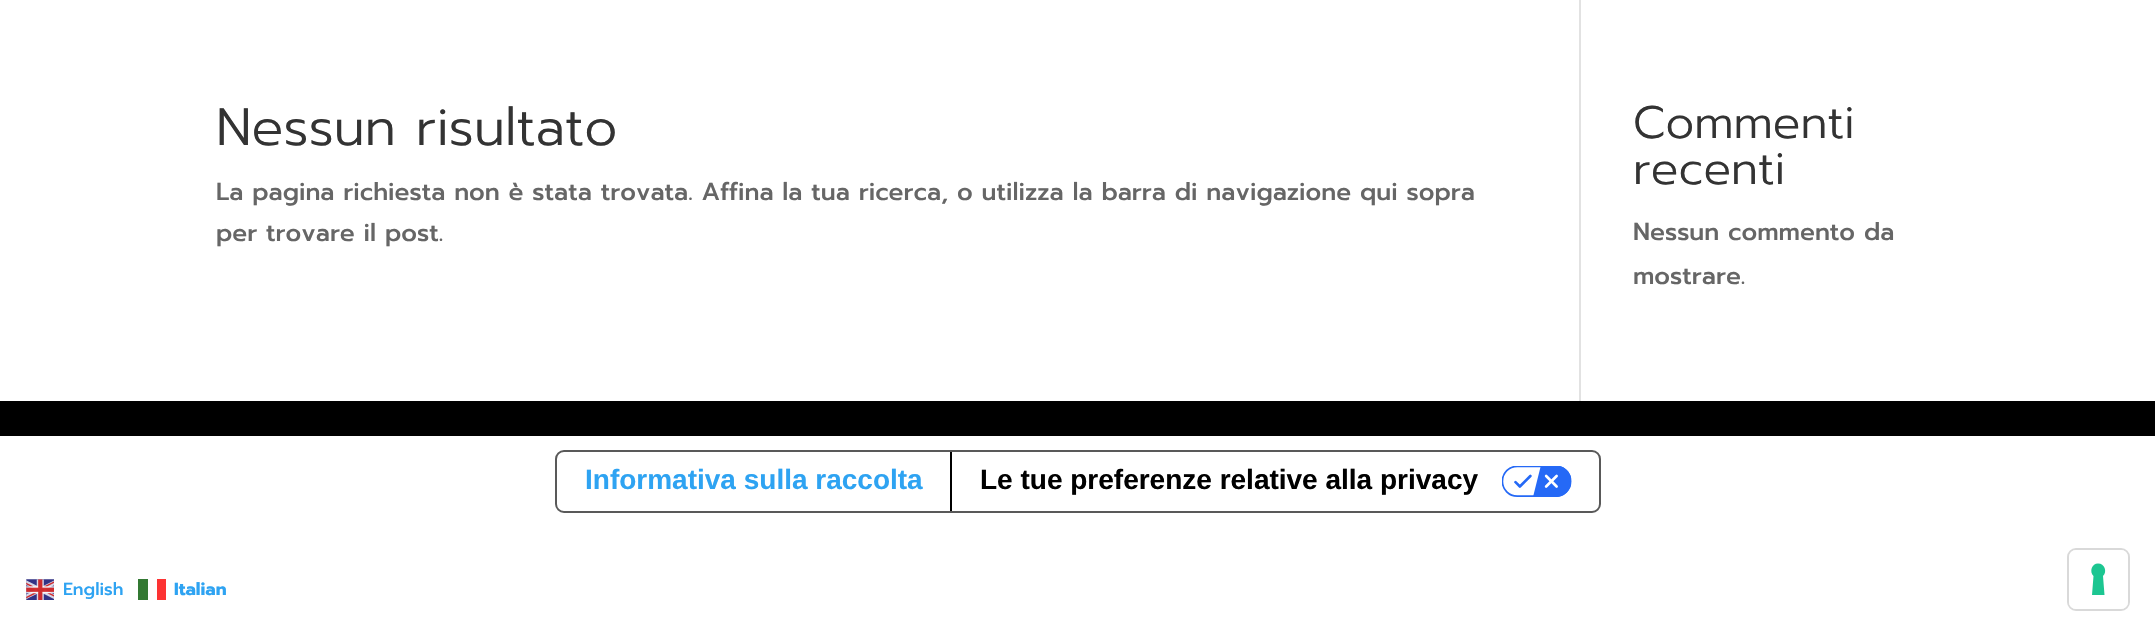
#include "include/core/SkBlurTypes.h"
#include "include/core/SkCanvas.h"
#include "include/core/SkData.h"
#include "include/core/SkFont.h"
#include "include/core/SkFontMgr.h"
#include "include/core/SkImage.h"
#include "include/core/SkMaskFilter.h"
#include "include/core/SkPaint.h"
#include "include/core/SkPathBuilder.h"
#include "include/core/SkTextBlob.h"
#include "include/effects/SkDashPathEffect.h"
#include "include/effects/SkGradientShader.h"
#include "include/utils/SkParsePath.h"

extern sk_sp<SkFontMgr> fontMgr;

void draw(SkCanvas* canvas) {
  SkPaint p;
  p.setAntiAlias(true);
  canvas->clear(SK_ColorWHITE);
  p.setColor(SkColorSetRGB(226, 226, 226));
  canvas->drawRect(SkRect::MakeLTRB(1579, 0, 1581, 401), p);
  p.setColor(SK_ColorBLACK);
  canvas->drawRect(SkRect::MakeLTRB(0, 401, 2155, 436), p);
  p.setStyle(SkPaint::kStroke_Style);
  p.setStrokeWidth(2);
  p.setColor(SkColorSetRGB(89, 89, 89));
  canvas->drawRoundRect(SkRect::MakeLTRB(556, 451, 1600, 512), 8, 8, p);
  p.setStyle(SkPaint::kFill_Style);
  p.setColor(SK_ColorBLACK);
  canvas->drawRect(SkRect::MakeLTRB(950, 452, 952, 511), p);
  canvas->drawImageRect(SkImages::DeferredFromEncodedData(SkData::MakeFromFileName("images/1.png")), SkRect::MakeLTRB(1502, 466, 1572, 497), SkSamplingOptions());
  canvas->drawImageRect(SkImages::DeferredFromEncodedData(SkData::MakeFromFileName("images/2.png")), SkRect::MakeLTRB(26, 579, 54, 600), SkSamplingOptions());
  p.setColor(SkColorSetRGB(51, 121, 51));
  canvas->drawRect(SkRect::MakeLTRB(138, 579, 148, 600), p);
  p.setColor(SkColorSetRGB(253, 51, 51));
  canvas->drawRect(SkRect::MakeLTRB(157, 579, 166, 600), p);
  p.setStyle(SkPaint::kStroke_Style);
  p.setColor(SkColorSetRGB(217, 217, 217));
  canvas->drawRoundRect(SkRect::MakeLTRB(2068, 549, 2129, 610), 8, 8, p);
  p.setStyle(SkPaint::kFill_Style);
  p.setColor(SK_ColorWHITE);
  canvas->drawRoundRect(SkRect::MakeLTRB(2069, 550, 2128, 609), 7, 7, p);
  p.setColor(SkColorSetRGB(28, 198, 145));
  canvas->drawPath(SkPathBuilder(SkPathFillType::kEvenOdd).moveTo(2098, 563.5f).cubicTo(2104.5f, 563.5f, 2107.5f, 571.5f, 2103, 576).lineTo(2104.5f, 595).lineTo(2092, 595).lineTo(2093.5f, 576).cubicTo(2089, 571.5f, 2092, 563.5f, 2098, 563.5f).close().detach(), p);
  SkFont font1(fontMgr->matchFamilyStyle("Prompt", SkFontStyle(300, SkFontStyle::kNormal_Width, SkFontStyle::kUpright_Slant)), 52.5f);
  font1.setSubpixel(true);
  p.setColor(SkColorSetRGB(51, 51, 51));
  canvas->drawString("Nessun risultato", 216, 145, font1, p);
  SkFont font2(fontMgr->matchFamilyStyle("Prompt", SkFontStyle(500, SkFontStyle::kNormal_Width, SkFontStyle::kUpright_Slant)), 24.5f);
  font2.setSubpixel(true);
  p.setColor(SkColorSetRGB(102, 102, 102));
  canvas->drawString("La pagina richiesta non è stata trovata. Affina la tua ricerca, o utilizza la barra di navigazione qui sopra", 216, 200, font2, p);
  canvas->drawString("per trovare il post.", 216, 241, font2, p);
  SkFont font3(fontMgr->matchFamilyStyle("Prompt", SkFontStyle(300, SkFontStyle::kNormal_Width, SkFontStyle::kUpright_Slant)), 45.5f);
  font3.setSubpixel(true);
  p.setColor(SkColorSetRGB(51, 51, 51));
  canvas->drawString("Commenti", 1633, 138, font3, p);
  canvas->drawString("recenti", 1633, 184, font3, p);
  p.setColor(SkColorSetRGB(102, 102, 102));
  canvas->drawString("Nessun commento da", 1633, 240, font2, p);
  canvas->drawString("mostrare.", 1633, 284, font2, p);
  SkFont font4(fontMgr->matchFamilyStyle("Liberation Sans", SkFontStyle::Bold()), 28);
  font4.setSubpixel(true);
  p.setColor(SkColorSetRGB(46, 163, 242));
  canvas->drawString("Informativa sulla raccolta", 585, 489, font4, p);
  p.setColor(SK_ColorBLACK);
  canvas->drawString("Le tue preferenze relative alla privacy", 980, 489, font4, p);
  SkFont font5(fontMgr->matchFamilyStyle("Prompt", SkFontStyle(500, SkFontStyle::kNormal_Width, SkFontStyle::kUpright_Slant)), 17.5f);
  font5.setSubpixel(true);
  p.setColor(SkColorSetRGB(46, 163, 242));
  canvas->drawString("English", 63, 595, font5, p);
  SkFont font6(fontMgr->matchFamilyStyle("Prompt", SkFontStyle::Bold()), 17.5f);
  font6.setSubpixel(true);
  canvas->drawString("Italian", 174, 595, font6, p);
}
